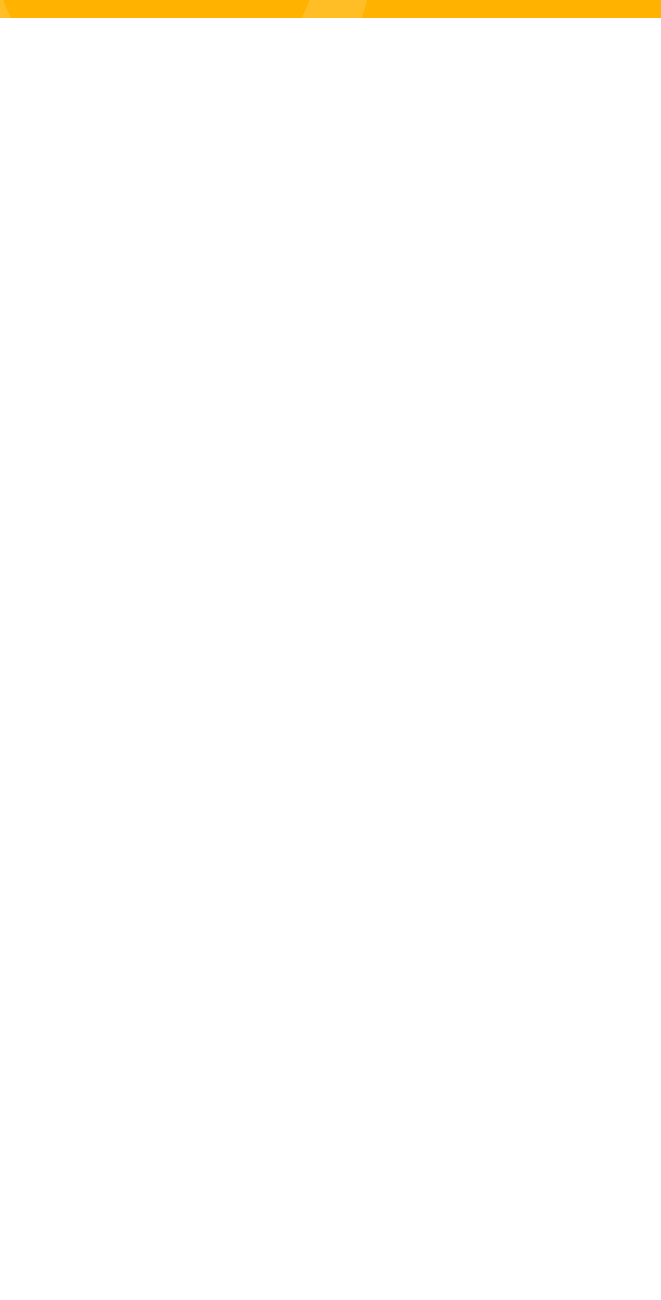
#include "include/core/SkBlurTypes.h"
#include "include/core/SkCanvas.h"
#include "include/core/SkData.h"
#include "include/core/SkFont.h"
#include "include/core/SkFontMgr.h"
#include "include/core/SkImage.h"
#include "include/core/SkMaskFilter.h"
#include "include/core/SkPaint.h"
#include "include/core/SkPathBuilder.h"
#include "include/core/SkTextBlob.h"
#include "include/effects/SkDashPathEffect.h"
#include "include/effects/SkGradientShader.h"
#include "include/utils/SkParsePath.h"

extern sk_sp<SkFontMgr> fontMgr;

void draw(SkCanvas* canvas) {
  SkPaint p;
  p.setAntiAlias(true);
  canvas->clear(SK_ColorWHITE);
  p.setColor(SkColorSetRGB(255, 179, 0));
  canvas->drawRect(SkRect::MakeLTRB(0, 0, 661, 18), p);
  canvas->drawImageRect(SkImages::DeferredFromEncodedData(SkData::MakeFromFileName("images/1.png")), SkRect::MakeLTRB(0, 0, 367, 18), SkSamplingOptions());
}
